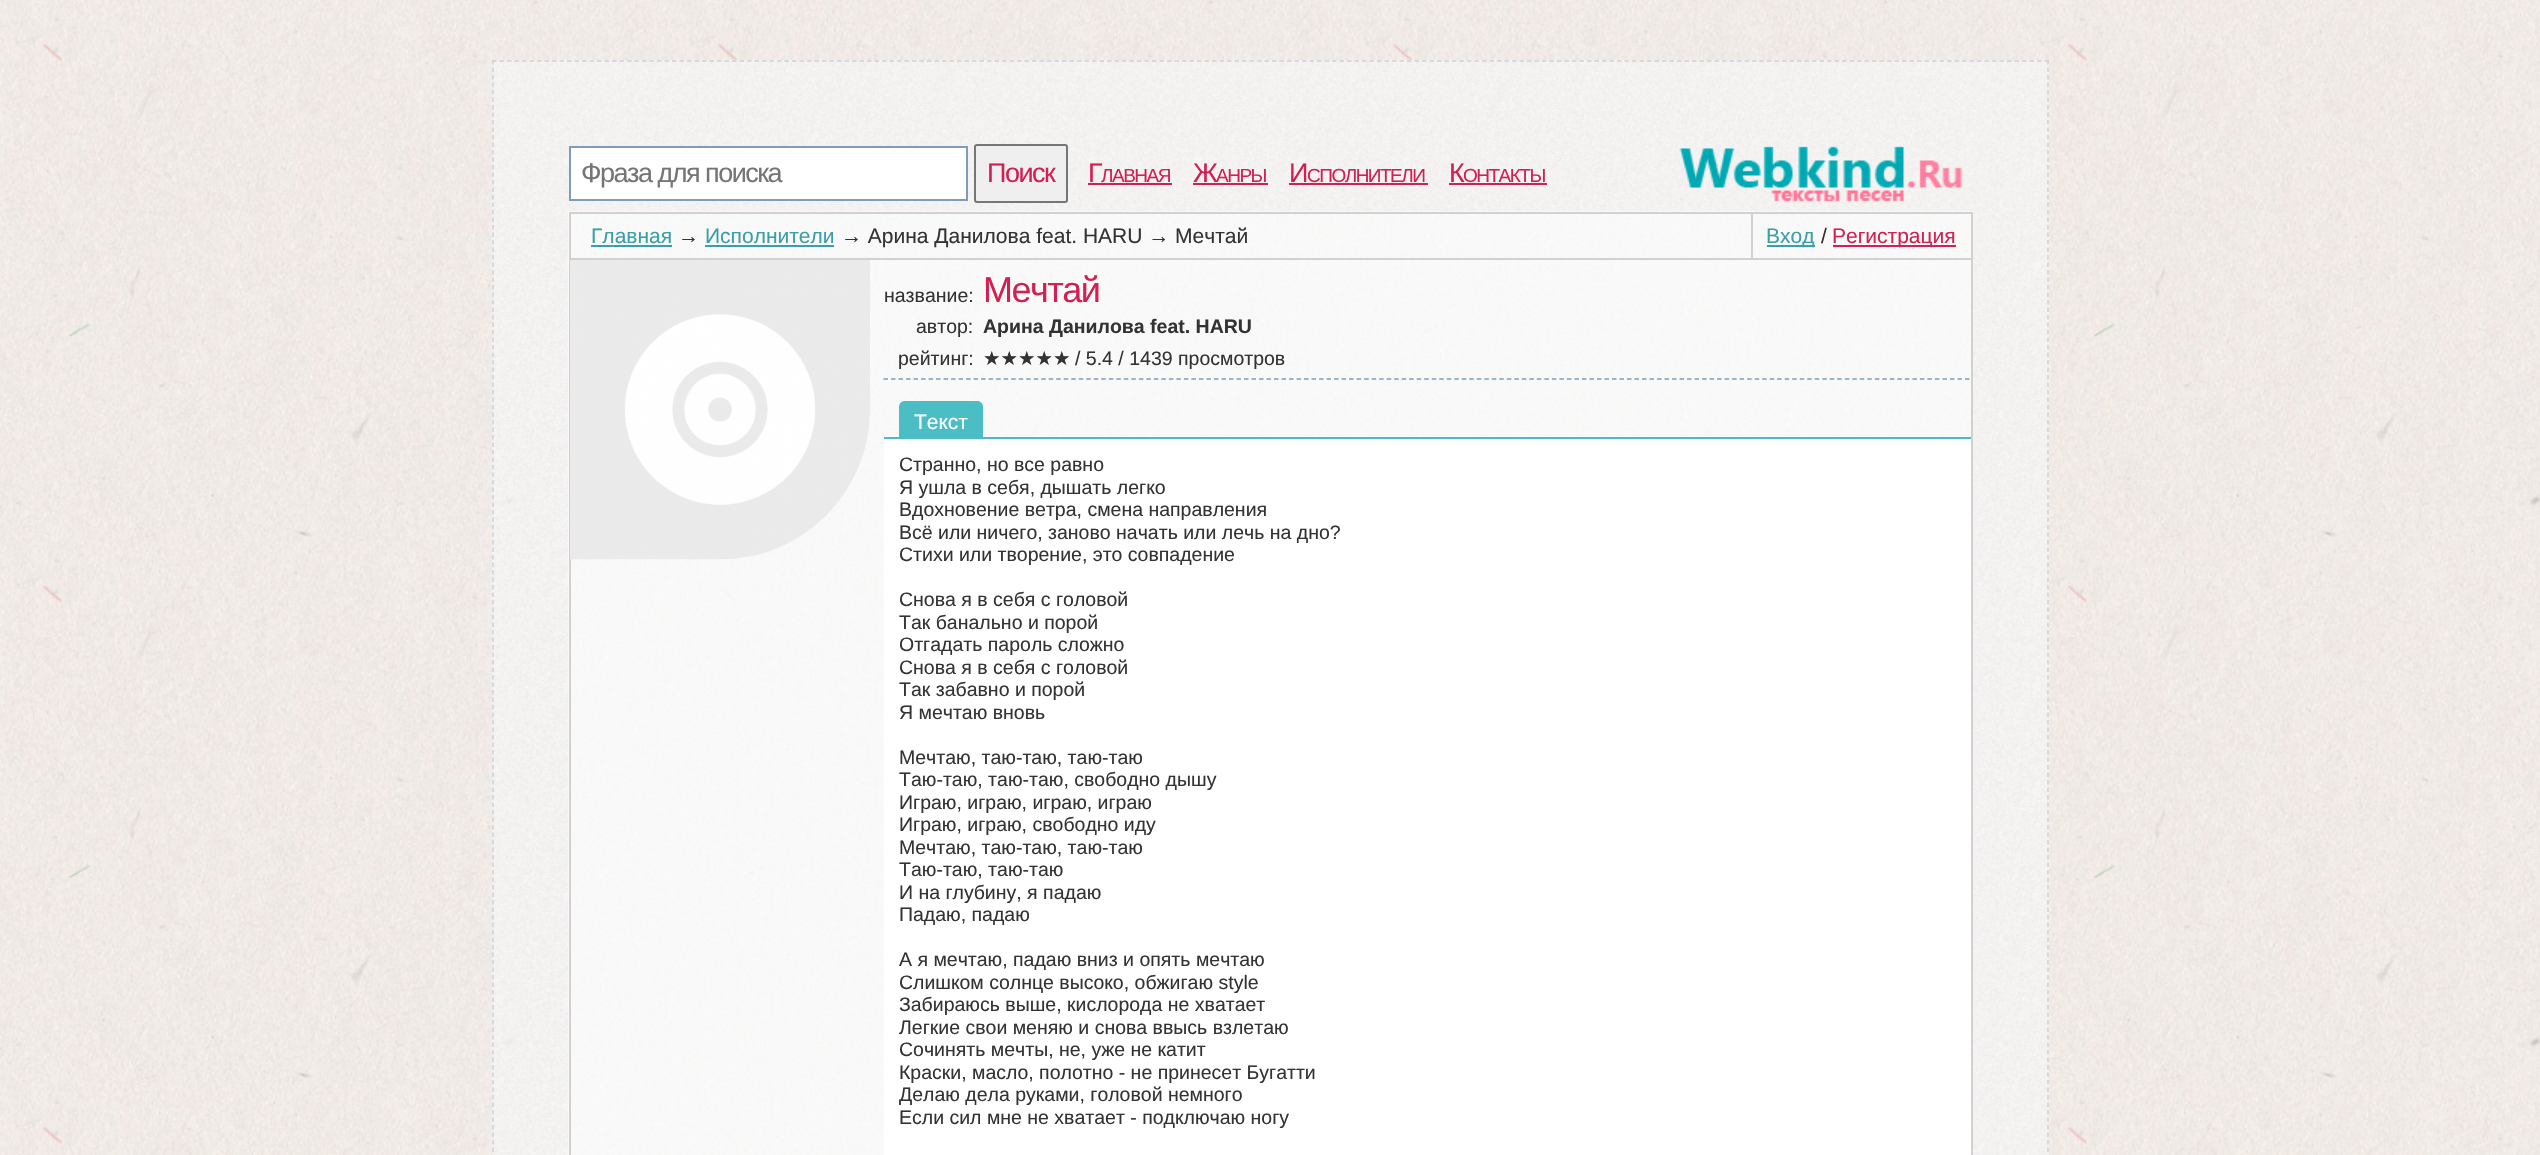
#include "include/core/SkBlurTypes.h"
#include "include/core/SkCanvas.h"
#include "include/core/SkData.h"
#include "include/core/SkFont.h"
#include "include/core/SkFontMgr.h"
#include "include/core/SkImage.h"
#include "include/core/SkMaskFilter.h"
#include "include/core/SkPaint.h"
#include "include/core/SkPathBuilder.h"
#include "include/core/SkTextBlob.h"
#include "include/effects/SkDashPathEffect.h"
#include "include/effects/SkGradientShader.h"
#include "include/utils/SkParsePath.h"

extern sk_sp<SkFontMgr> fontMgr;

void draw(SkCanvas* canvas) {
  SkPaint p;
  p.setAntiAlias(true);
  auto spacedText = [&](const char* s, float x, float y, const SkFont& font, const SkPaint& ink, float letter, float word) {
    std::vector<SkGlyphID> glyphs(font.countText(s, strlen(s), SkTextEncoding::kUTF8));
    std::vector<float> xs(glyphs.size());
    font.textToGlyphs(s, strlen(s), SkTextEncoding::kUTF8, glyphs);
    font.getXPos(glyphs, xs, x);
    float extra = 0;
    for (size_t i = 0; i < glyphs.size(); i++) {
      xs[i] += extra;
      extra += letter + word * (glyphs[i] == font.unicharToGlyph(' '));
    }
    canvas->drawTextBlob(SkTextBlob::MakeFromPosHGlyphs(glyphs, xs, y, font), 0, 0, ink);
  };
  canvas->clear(SK_ColorWHITE);
  canvas->drawImageRect(SkImages::DeferredFromEncodedData(SkData::MakeFromFileName("images/1.png")), SkRect::MakeLTRB(0, 0, 2540, 1155), SkSamplingOptions());
  canvas->drawImageRect(SkImages::DeferredFromEncodedData(SkData::MakeFromFileName("images/2.png")), SkRect::MakeLTRB(492, 60, 2049, 1155), SkSamplingOptions());
  p.setStyle(SkPaint::kStroke_Style);
  p.setStrokeWidth(1.5f);
  p.setColor(SkColorSetRGB(209, 209, 209));
  p.setPathEffect(SkDashPathEffect::Make({{4.5f, 3}}, 0));
  canvas->drawPath(SkPathBuilder().moveTo(492, 61).lineTo(2049, 61).detach(), p);
  p.setPathEffect(nullptr);
  p.setPathEffect(SkDashPathEffect::Make({{4.5f, 3}}, 0));
  canvas->drawPath(SkPathBuilder().moveTo(2048, 60).lineTo(2048, 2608.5f).detach(), p);
  p.setPathEffect(nullptr);
  p.setPathEffect(SkDashPathEffect::Make({{4.5f, 3}}, 0));
  canvas->drawPath(SkPathBuilder().moveTo(493, 60).lineTo(493, 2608.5f).detach(), p);
  p.setPathEffect(nullptr);
  p.setStyle(SkPaint::kFill_Style);
  p.setColor(SK_ColorWHITE);
  canvas->drawRect(SkRect::MakeLTRB(570, 147, 967, 200), p);
  p.setStyle(SkPaint::kStroke_Style);
  p.setStrokeWidth(2);
  p.setColor(SkColorSetRGB(127, 157, 185));
  canvas->drawRect(SkRect::MakeLTRB(570, 147, 967, 200), p);
  p.setStyle(SkPaint::kFill_Style);
  p.setColor(SkColorSetRGB(239, 239, 239));
  canvas->drawRoundRect(SkRect::MakeLTRB(975, 145, 1067, 202), 2, 2, p);
  p.setStyle(SkPaint::kStroke_Style);
  p.setColor(SkColorSetRGB(118, 118, 118));
  canvas->drawRoundRect(SkRect::MakeLTRB(975, 145, 1067, 202), 2, 2, p);
  p.setStyle(SkPaint::kFill_Style);
  p.setColor(SkColorSetRGB(209, 32, 82));
  canvas->drawRect(SkRect::MakeLTRB(1088, 183, 1172, 185), p);
  canvas->drawRect(SkRect::MakeLTRB(1193, 183, 1268, 185), p);
  canvas->drawRect(SkRect::MakeLTRB(1289, 183, 1428, 185), p);
  canvas->drawRect(SkRect::MakeLTRB(1449, 183, 1547, 185), p);
  canvas->drawImageRect(SkImages::DeferredFromEncodedData(SkData::MakeFromFileName("images/3.png")), SkRect::MakeLTRB(1679, 146, 1963, 202), SkSamplingOptions());
  p.setColor(SkColorSetARGB(135, 255, 255, 255));
  canvas->drawRect(SkRect::MakeLTRB(568, 211, 1973, 1155), p);
  p.setStyle(SkPaint::kStroke_Style);
  p.setColor(SkColorSetRGB(209, 209, 209));
  canvas->drawRect(SkRect::MakeLTRB(570, 213, 1972, 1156), p);
  p.setStyle(SkPaint::kFill_Style);
  canvas->drawRect(SkRect::MakeLTRB(570, 258, 1971, 260), p);
  p.setColor(SkColorSetRGB(58, 159, 169));
  canvas->drawRect(SkRect::MakeLTRB(591, 245, 672, 247), p);
  canvas->drawRect(SkRect::MakeLTRB(705, 245, 834, 247), p);
  p.setColor(SkColorSetRGB(209, 209, 209));
  canvas->drawRect(SkRect::MakeLTRB(1751, 213, 1753, 260), p);
  p.setColor(SkColorSetRGB(58, 159, 169));
  canvas->drawRect(SkRect::MakeLTRB(1767, 245, 1815, 247), p);
  p.setColor(SkColorSetRGB(209, 32, 82));
  canvas->drawRect(SkRect::MakeLTRB(1833, 245, 1956, 247), p);
  canvas->drawImageRect(SkImages::DeferredFromEncodedData(SkData::MakeFromFileName("images/4.png")), SkRect::MakeLTRB(570, 260, 870, 560), SkSamplingOptions());
  p.setStyle(SkPaint::kStroke_Style);
  p.setStrokeWidth(1.5f);
  p.setColor(SkColorSetRGB(127, 157, 185));
  p.setPathEffect(SkDashPathEffect::Make({{4.5f, 3.01f}}, 0));
  canvas->drawPath(SkPathBuilder().moveTo(883.5f, 379).lineTo(1971, 379).detach(), p);
  p.setPathEffect(nullptr);
  p.setStyle(SkPaint::kFill_Style);
  p.setColor(SkColorSetRGB(75, 190, 197));
  canvas->drawRect(SkRect::MakeLTRB(884, 437, 1971, 439), p);
  canvas->drawPath(SkPathBuilder().moveTo(905, 401).lineTo(977, 401).cubicTo(980.5f, 401, 983, 403.5f, 983, 407).lineTo(983, 437).lineTo(899, 437).lineTo(899, 407).cubicTo(899, 403.5f, 901.5f, 401, 905, 401).close().detach(), p);
  p.setColor(SK_ColorWHITE);
  canvas->drawRect(SkRect::MakeLTRB(884, 439, 1971, 1155), p);
  SkFont font1(fontMgr->matchFamilyStyle("Liberation Sans", SkFontStyle::Normal()), 27);
  font1.setSubpixel(true);
  p.setColor(SkColorSetRGB(117, 117, 117));
  spacedText("Фраза для поиска", 581, 182, font1, p, -1.5f, 0);
  p.setColor(SkColorSetRGB(209, 32, 82));
  spacedText("Поиск", 987, 182, font1, p, -1.5f, 0);
  spacedText("Г", 1088, 182, font1, p, -1.5f, 0);
  SkFont font2(fontMgr->matchFamilyStyle("Liberation Sans", SkFontStyle::Normal()), 19);
  font2.setSubpixel(true);
  spacedText("ЛАВНАЯ", 1101, 182, font2, p, -1.5f, 0);
  spacedText("Ж", 1193, 182, font1, p, -1.5f, 0);
  spacedText("АНРЫ", 1216, 182, font2, p, -1.5f, 0);
  spacedText("И", 1289, 182, font1, p, -1.5f, 0);
  spacedText("СПОЛНИТЕЛИ", 1307, 182, font2, p, -1.5f, 0);
  spacedText("К", 1449, 182, font1, p, -1.5f, 0);
  spacedText("ОНТАКТЫ", 1463, 182, font2, p, -1.5f, 0);
  SkFont font3(fontMgr->matchFamilyStyle("Liberation Sans", SkFontStyle::Normal()), 21);
  font3.setSubpixel(true);
  p.setColor(SkColorSetRGB(58, 159, 169));
  canvas->drawString("Главная", 591, 243, font3, p);
  p.setColor(SkColorSetRGB(51, 51, 51));
  canvas->drawString("→", 678, 243, font3, p);
  p.setColor(SkColorSetRGB(58, 159, 169));
  canvas->drawString("Исполнители", 705, 243, font3, p);
  p.setColor(SkColorSetRGB(51, 51, 51));
  canvas->drawString("→ Арина Данилова feat. HARU → Мечтай", 841, 243, font3, p);
  p.setColor(SkColorSetRGB(58, 159, 169));
  canvas->drawString("Вход", 1766, 243, font3, p);
  p.setColor(SkColorSetRGB(51, 51, 51));
  canvas->drawString("/", 1821, 243, font3, p);
  p.setColor(SkColorSetRGB(209, 32, 82));
  canvas->drawString("Регистрация", 1832, 243, font3, p);
  SkFont font4(fontMgr->matchFamilyStyle("Liberation Sans", SkFontStyle::Normal()), 19.5f);
  font4.setSubpixel(true);
  p.setColor(SkColorSetRGB(51, 51, 51));
  canvas->drawString("название:", 884, 302, font4, p);
  SkFont font5(fontMgr->matchFamilyStyle("Liberation Sans", SkFontStyle::Normal()), 36);
  font5.setSubpixel(true);
  p.setColor(SkColorSetRGB(209, 32, 82));
  spacedText("Мечтай", 983, 302, font5, p, -1.5f, 0);
  p.setColor(SkColorSetRGB(51, 51, 51));
  canvas->drawString("автор:", 916, 333, font4, p);
  SkFont font6(fontMgr->matchFamilyStyle("Liberation Sans", SkFontStyle::Bold()), 19.5f);
  font6.setSubpixel(true);
  canvas->drawString("Арина Данилова feat. HARU", 983, 333, font6, p);
  canvas->drawString("рейтинг:", 898, 365, font4, p);
  SkFont font7(fontMgr->matchFamilyStyle("DejaVu Sans", SkFontStyle::Normal()), 19.5f);
  font7.setSubpixel(true);
  canvas->drawString("★★★★★", 983, 365, font7, p);
  canvas->drawString("/ 5.4 / 1439 просмотров", 1075, 365, font4, p);
  p.setColor(SK_ColorWHITE);
  canvas->drawString("Текст", 914, 429, font3, p);
  p.setColor(SkColorSetRGB(51, 51, 51));
  canvas->drawString("Странно, но все равно", 899, 471, font4, p);
  canvas->drawString("Я ушла в себя, дышать легко", 899, 494, font4, p);
  canvas->drawString("Вдохновение ветра, смена направления", 899, 516, font4, p);
  canvas->drawString("Всё или ничего, заново начать или лечь на дно?", 899, 539, font4, p);
  canvas->drawString("Стихи или творение, это совпадение", 899, 561, font4, p);
  canvas->drawString("Снова я в себя с головой", 899, 606, font4, p);
  canvas->drawString("Так банально и порой", 899, 629, font4, p);
  canvas->drawString("Отгадать пароль сложно", 899, 651, font4, p);
  canvas->drawString("Снова я в себя с головой", 899, 674, font4, p);
  canvas->drawString("Так забавно и порой", 899, 696, font4, p);
  canvas->drawString("Я мечтаю вновь", 899, 719, font4, p);
  canvas->drawString("Мечтаю, таю-таю, таю-таю", 899, 764, font4, p);
  canvas->drawString("Таю-таю, таю-таю, свободно дышу", 899, 786, font4, p);
  canvas->drawString("Играю, играю, играю, играю", 899, 809, font4, p);
  canvas->drawString("Играю, играю, свободно иду", 899, 831, font4, p);
  canvas->drawString("Мечтаю, таю-таю, таю-таю", 899, 854, font4, p);
  canvas->drawString("Таю-таю, таю-таю", 899, 876, font4, p);
  canvas->drawString("И на глубину, я падаю", 899, 899, font4, p);
  canvas->drawString("Падаю, падаю", 899, 921, font4, p);
  canvas->drawString("А я мечтаю, падаю вниз и опять мечтаю", 899, 966, font4, p);
  canvas->drawString("Слишком солнце высоко, обжигаю style", 899, 989, font4, p);
  canvas->drawString("Забираюсь выше, кислорода не хватает", 899, 1011, font4, p);
  canvas->drawString("Легкие свои меняю и снова ввысь взлетаю", 899, 1034, font4, p);
  canvas->drawString("Сочинять мечты, не, уже не катит", 899, 1056, font4, p);
  canvas->drawString("Краски, масло, полотно - не принесет Бугатти", 899, 1079, font4, p);
  canvas->drawString("Делаю дела руками, головой немного", 899, 1101, font4, p);
  canvas->drawString("Если сил мне не хватает - подключаю ногу", 899, 1124, font4, p);
}
